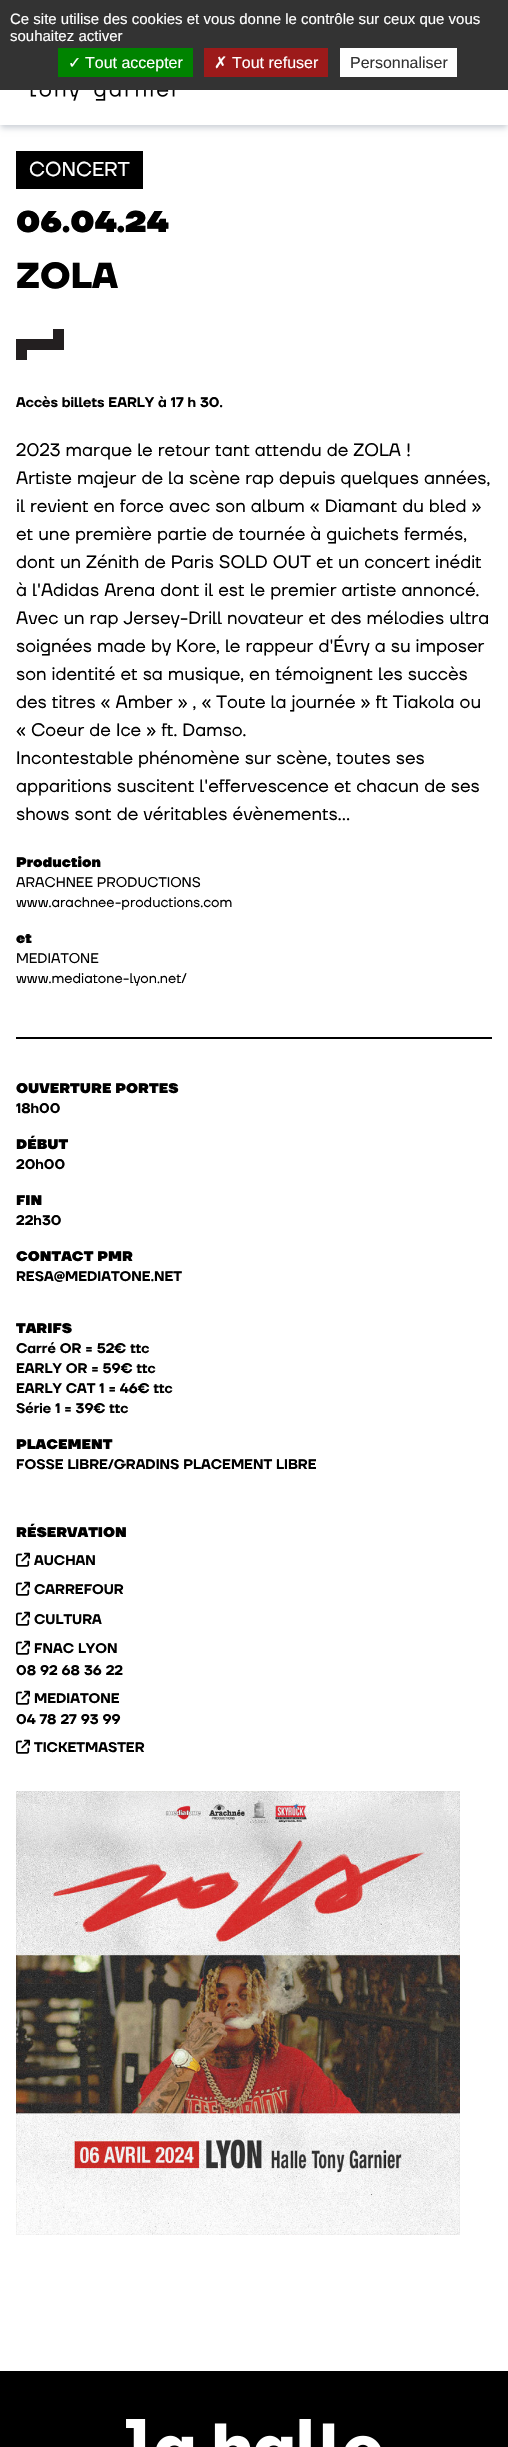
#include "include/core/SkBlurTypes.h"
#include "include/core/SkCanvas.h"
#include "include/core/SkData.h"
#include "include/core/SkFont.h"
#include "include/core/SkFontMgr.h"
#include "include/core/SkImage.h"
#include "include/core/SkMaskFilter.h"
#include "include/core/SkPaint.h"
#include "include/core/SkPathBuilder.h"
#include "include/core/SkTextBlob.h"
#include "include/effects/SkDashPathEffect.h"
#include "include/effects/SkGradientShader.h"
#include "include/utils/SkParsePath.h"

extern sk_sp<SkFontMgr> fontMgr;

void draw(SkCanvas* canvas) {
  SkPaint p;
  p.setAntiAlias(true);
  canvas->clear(SK_ColorWHITE);
  p.setColor(SkColorSetRGB(209, 213, 219));
  p.setMaskFilter(SkMaskFilter::MakeBlur(kNormal_SkBlurStyle, 2));
  canvas->drawRect(SkRect::MakeLTRB(2, 4, 506, 125), p);
  p.setMaskFilter(nullptr);
  p.setMaskFilter(SkMaskFilter::MakeBlur(kNormal_SkBlurStyle, 3));
  canvas->drawRect(SkRect::MakeLTRB(1, 5, 507, 128), p);
  p.setMaskFilter(nullptr);
  p.setColor(SK_ColorWHITE);
  canvas->drawRect(SkRect::MakeLTRB(0, 90, 508, 125), p);
  canvas->drawImageRect(SkImages::DeferredFromEncodedData(SkData::MakeFromFileName("images/1.png")), SkRect::MakeLTRB(30, 90, 175, 101), SkSamplingOptions());
  p.setColor(SkColorSetRGB(51, 51, 51));
  canvas->drawRect(SkRect::MakeLTRB(0, 0, 508, 90), p);
  p.setColor(SkColorSetRGB(0, 131, 0));
  canvas->drawRect(SkRect::MakeLTRB(58, 48, 193, 77), p);
  p.setColor(SkColorSetRGB(156, 26, 26));
  canvas->drawRect(SkRect::MakeLTRB(204, 48, 328, 77), p);
  p.setColor(SK_ColorWHITE);
  canvas->drawRect(SkRect::MakeLTRB(340, 48, 457, 77), p);
  p.setColor(SK_ColorBLACK);
  canvas->drawRect(SkRect::MakeLTRB(16, 151, 143, 189), p);
  p.setColor(SkColorSetRGB(35, 31, 32));
  canvas->drawPath(SkPathBuilder(SkPathFillType::kEvenOdd).moveTo(16, 360).lineTo(16, 339).lineTo(53, 339).lineTo(53, 329).lineTo(64, 329).lineTo(64, 350).lineTo(27, 350).lineTo(27, 360).close().detach(), p);
  p.setColor(SK_ColorBLACK);
  canvas->drawRect(SkRect::MakeLTRB(16, 1037, 492, 1039), p);
  canvas->drawImageRect(SkImages::DeferredFromEncodedData(SkData::MakeFromFileName("images/2.png")), SkRect::MakeLTRB(16, 1552, 30, 1567), SkSamplingOptions());
  canvas->drawImageRect(SkImages::DeferredFromEncodedData(SkData::MakeFromFileName("images/2.png")), SkRect::MakeLTRB(16, 1581, 30, 1596), SkSamplingOptions());
  canvas->drawImageRect(SkImages::DeferredFromEncodedData(SkData::MakeFromFileName("images/2.png")), SkRect::MakeLTRB(16, 1611, 30, 1626), SkSamplingOptions());
  canvas->drawImageRect(SkImages::DeferredFromEncodedData(SkData::MakeFromFileName("images/2.png")), SkRect::MakeLTRB(16, 1640, 30, 1655), SkSamplingOptions());
  canvas->drawImageRect(SkImages::DeferredFromEncodedData(SkData::MakeFromFileName("images/2.png")), SkRect::MakeLTRB(16, 1690, 30, 1705), SkSamplingOptions());
  canvas->drawImageRect(SkImages::DeferredFromEncodedData(SkData::MakeFromFileName("images/2.png")), SkRect::MakeLTRB(16, 1739, 30, 1754), SkSamplingOptions());
  canvas->drawImageRect(SkImages::DeferredFromEncodedData(SkData::MakeFromFileName("images/3.png")), SkRect::MakeLTRB(16, 1791, 460, 2235), SkSamplingOptions());
  canvas->drawRect(SkRect::MakeLTRB(0, 2371, 508, 2447), p);
  canvas->drawImageRect(SkImages::DeferredFromEncodedData(SkData::MakeFromFileName("images/4.png")), SkRect::MakeLTRB(126, 2419, 381, 2447), SkSamplingOptions());
  SkFont font1(fontMgr->matchFamilyStyle("Liberation Sans", SkFontStyle::Normal()), 15);
  font1.setSubpixel(true);
  p.setColor(SK_ColorWHITE);
  canvas->drawString("Ce site utilise des cookies et vous donne le contrôle sur ceux que vous", 10, 24, font1, p);
  canvas->drawString("souhaitez activer", 10, 41, font1, p);
  SkFont font2(fontMgr->matchFamilyStyle("DejaVu Sans", SkFontStyle::Normal()), 16);
  font2.setSubpixel(true);
  canvas->drawString("✓", 68, 68, font2, p);
  SkFont font3(fontMgr->matchFamilyStyle("Liberation Sans", SkFontStyle::Normal()), 16);
  font3.setSubpixel(true);
  canvas->drawString("Tout accepter", 85, 68, font3, p);
  canvas->drawString("✗", 214, 68, font2, p);
  canvas->drawString("Tout refuser", 232, 68, font3, p);
  p.setColor(SkColorSetRGB(51, 51, 51));
  canvas->drawString("Personnaliser", 350, 68, font3, p);
  SkFont font4(fontMgr->matchFamilyStyle("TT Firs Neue", SkFontStyle::Normal()), 20);
  font4.setSubpixel(true);
  p.setColor(SK_ColorWHITE);
  canvas->drawString("CONCERT", 29, 176, font4, p);
  SkFont font5(fontMgr->matchFamilyStyle("TT Firs Neue", SkFontStyle(900, SkFontStyle::kNormal_Width, SkFontStyle::kUpright_Slant)), 30);
  font5.setSubpixel(true);
  p.setColor(SK_ColorBLACK);
  canvas->drawString("06.04.24", 16, 232, font5, p);
  SkFont font6(fontMgr->matchFamilyStyle("TT Firs Neue", SkFontStyle::Bold()), 36);
  font6.setSubpixel(true);
  canvas->drawString("ZOLA", 16, 288, font6, p);
  SkFont font7(fontMgr->matchFamilyStyle("TT Firs Neue", SkFontStyle(600, SkFontStyle::kNormal_Width, SkFontStyle::kUpright_Slant)), 14);
  font7.setSubpixel(true);
  canvas->drawString("Accès billets EARLY à 17 h 30.", 16, 407, font7, p);
  SkFont font8(fontMgr->matchFamilyStyle("TT Firs Neue", SkFontStyle::Normal()), 18);
  font8.setSubpixel(true);
  canvas->drawString("2023 marque le retour tant attendu de ZOLA !", 16, 456, font8, p);
  canvas->drawString("Artiste majeur de la scène rap depuis quelques années,", 16, 484, font8, p);
  canvas->drawString("il revient en force avec son album « Diamant du bled »", 16, 512, font8, p);
  canvas->drawString("et une première partie de tournée à guichets fermés,", 16, 540, font8, p);
  canvas->drawString("dont un Zénith de Paris SOLD OUT et un concert inédit", 16, 568, font8, p);
  canvas->drawString("à l'Adidas Arena dont il est le premier artiste annoncé.", 16, 596, font8, p);
  canvas->drawString("Avec un rap Jersey-Drill novateur et des mélodies ultra", 16, 624, font8, p);
  canvas->drawString("soignées made by Kore, le rappeur d'Évry a su imposer", 16, 652, font8, p);
  canvas->drawString("son identité et sa musique, en témoignent les succès", 16, 680, font8, p);
  canvas->drawString("des titres « Amber » , « Toute la journée » ft Tiakola ou", 16, 708, font8, p);
  canvas->drawString("« Coeur de Ice » ft. Damso.", 16, 736, font8, p);
  canvas->drawString("Incontestable phénomène sur scène, toutes ses", 16, 764, font8, p);
  canvas->drawString("apparitions suscitent l'effervescence et chacun de ses", 16, 792, font8, p);
  canvas->drawString("shows sont de véritables évènements…", 16, 820, font8, p);
  SkFont font9(fontMgr->matchFamilyStyle("TT Firs Neue", SkFontStyle(900, SkFontStyle::kNormal_Width, SkFontStyle::kUpright_Slant)), 14);
  font9.setSubpixel(true);
  canvas->drawString("Production", 16, 867, font9, p);
  SkFont font10(fontMgr->matchFamilyStyle("TT Firs Neue", SkFontStyle::Normal()), 14);
  font10.setSubpixel(true);
  canvas->drawString("ARACHNEE PRODUCTIONS", 16, 887, font10, p);
  canvas->drawString("www.arachnee-productions.com", 16, 907, font10, p);
  canvas->drawString("et", 16, 943, font9, p);
  canvas->drawString("MEDIATONE", 16, 963, font10, p);
  canvas->drawString("www.mediatone-lyon.net/", 16, 983, font10, p);
  canvas->drawString("OUVERTURE PORTES", 16, 1093, font9, p);
  canvas->drawString("18h00", 16, 1113, font7, p);
  canvas->drawString("DÉBUT", 16, 1149, font9, p);
  canvas->drawString("20h00", 16, 1169, font7, p);
  canvas->drawString("FIN", 16, 1205, font9, p);
  canvas->drawString("22h30", 16, 1225, font7, p);
  canvas->drawString("CONTACT PMR", 16, 1261, font9, p);
  canvas->drawString("RESA@MEDIATONE.NET", 16, 1281, font7, p);
  canvas->drawString("TARIFS", 16, 1333, font9, p);
  canvas->drawString("Carré OR = 52€ ttc", 16, 1353, font7, p);
  canvas->drawString("EARLY OR = 59€ ttc", 16, 1373, font7, p);
  canvas->drawString("EARLY CAT 1 = 46€ ttc", 16, 1393, font7, p);
  canvas->drawString("Série 1 = 39€ ttc", 16, 1413, font7, p);
  canvas->drawString("PLACEMENT", 16, 1449, font9, p);
  canvas->drawString("FOSSE LIBRE/GRADINS PLACEMENT LIBRE", 16, 1469, font7, p);
  canvas->drawString("RÉSERVATION", 16, 1537, font9, p);
  canvas->drawString("AUCHAN", 34, 1565, font7, p);
  canvas->drawString("CARREFOUR", 34, 1594, font7, p);
  canvas->drawString("CULTURA", 34, 1624, font7, p);
  canvas->drawString("FNAC LYON", 34, 1653, font7, p);
  canvas->drawString("08 92 68 36 22", 16, 1675, font7, p);
  canvas->drawString("MEDIATONE", 34, 1703, font7, p);
  canvas->drawString("04 78 27 93 99", 16, 1724, font7, p);
  canvas->drawString("TICKETMASTER", 34, 1752, font7, p);
}
